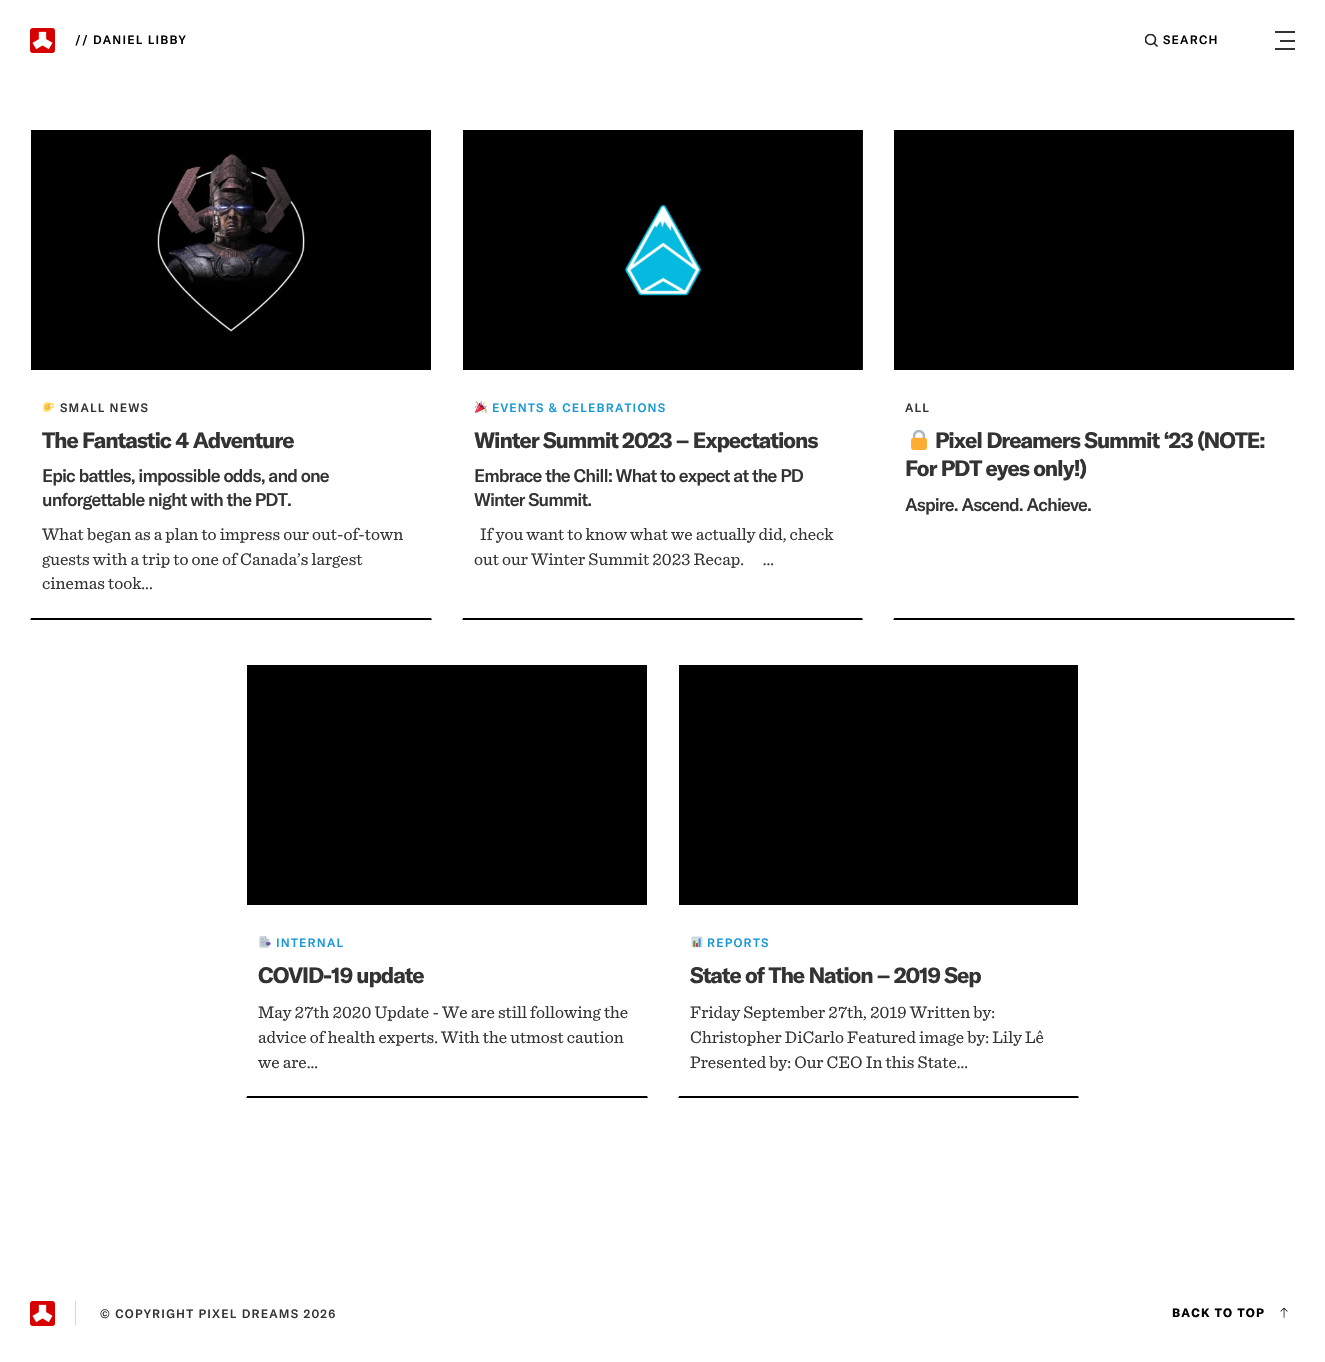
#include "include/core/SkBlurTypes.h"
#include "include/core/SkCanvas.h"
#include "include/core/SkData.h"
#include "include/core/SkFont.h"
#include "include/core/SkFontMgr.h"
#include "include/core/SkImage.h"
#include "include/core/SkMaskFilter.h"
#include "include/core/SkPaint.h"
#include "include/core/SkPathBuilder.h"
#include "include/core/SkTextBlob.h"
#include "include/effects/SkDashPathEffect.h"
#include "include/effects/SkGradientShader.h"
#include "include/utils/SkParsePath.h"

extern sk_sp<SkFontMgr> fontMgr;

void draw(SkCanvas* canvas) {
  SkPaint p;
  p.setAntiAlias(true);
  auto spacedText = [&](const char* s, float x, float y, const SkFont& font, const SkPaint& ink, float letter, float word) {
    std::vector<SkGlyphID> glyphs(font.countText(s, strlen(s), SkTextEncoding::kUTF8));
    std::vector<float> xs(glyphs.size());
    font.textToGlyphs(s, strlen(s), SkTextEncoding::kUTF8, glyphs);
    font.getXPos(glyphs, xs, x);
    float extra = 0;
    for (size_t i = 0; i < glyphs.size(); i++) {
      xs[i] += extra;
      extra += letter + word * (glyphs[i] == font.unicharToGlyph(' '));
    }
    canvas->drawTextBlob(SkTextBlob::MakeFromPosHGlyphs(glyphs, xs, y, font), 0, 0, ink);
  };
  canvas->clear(SK_ColorWHITE);
  canvas->drawImageRect(SkImages::DeferredFromEncodedData(SkData::MakeFromFileName("images/1.png")), SkRect::MakeLTRB(30, 28, 55, 53), SkSamplingOptions());
  canvas->save();
  canvas->clipRect(SkRect::MakeLTRB(1145, 34, 1158, 47));
  p.setStyle(SkPaint::kStroke_Style);
  p.setStrokeWidth(1.6f);
  p.setColor(SkColorSetRGB(35, 31, 32));
  canvas->drawCircle(1150.5f, 39.5f, 5, p);
  canvas->restore();
  canvas->drawPath(SkPathBuilder().moveTo(1154, 43).lineTo(1157.5f, 46.5f).detach(), p);
  p.setStyle(SkPaint::kFill_Style);
  p.setColor(SkColorSetRGB(51, 51, 51));
  canvas->drawRect(SkRect::MakeLTRB(1275, 31, 1295, 33), p);
  canvas->drawRect(SkRect::MakeLTRB(1280, 40, 1295, 42), p);
  canvas->drawRect(SkRect::MakeLTRB(1275, 48, 1295, 50), p);
  p.setColor(SK_ColorBLACK);
  canvas->drawPath(SkPathBuilder().moveTo(432, 620).lineTo(30, 620).lineTo(31, 618).lineTo(431, 618).close().detach(), p);
  p.setColor(SK_ColorWHITE);
  canvas->drawPath(SkPathBuilder().moveTo(30, 620).lineTo(30, 129).lineTo(31, 130).lineTo(31, 618).close().detach(), p);
  p.setColor(SK_ColorBLACK);
  canvas->drawRect(SkRect::MakeLTRB(31, 130, 431, 370), p);
  canvas->drawImageRect(SkImages::DeferredFromEncodedData(SkData::MakeFromFileName("images/2.png")), SkRect::MakeLTRB(157, 153, 305, 334), SkSamplingOptions());
  canvas->drawImageRect(SkImages::DeferredFromEncodedData(SkData::MakeFromFileName("images/3.png")), SkRect::MakeLTRB(43, 402, 55, 412), SkSamplingOptions());
  canvas->drawPath(SkPathBuilder().moveTo(863, 620).lineTo(462, 620).lineTo(463, 618).lineTo(862, 618).close().detach(), p);
  p.setColor(SK_ColorWHITE);
  canvas->drawPath(SkPathBuilder().moveTo(462, 620).lineTo(462, 129).lineTo(463, 130).lineTo(463, 618).close().detach(), p);
  p.setColor(SK_ColorBLACK);
  canvas->drawRect(SkRect::MakeLTRB(463, 130, 862, 370), p);
  canvas->drawImageRect(SkImages::DeferredFromEncodedData(SkData::MakeFromFileName("images/4.png")), SkRect::MakeLTRB(624, 130, 863, 370), SkSamplingOptions());
  canvas->drawImageRect(SkImages::DeferredFromEncodedData(SkData::MakeFromFileName("images/5.png")), SkRect::MakeLTRB(475, 401, 487, 413), SkSamplingOptions());
  canvas->drawPath(SkPathBuilder().moveTo(1295, 620).lineTo(893, 620).lineTo(894, 618).lineTo(1294, 618).close().detach(), p);
  p.setColor(SK_ColorWHITE);
  canvas->drawPath(SkPathBuilder().moveTo(893, 620).lineTo(893, 129).lineTo(894, 130).lineTo(894, 618).close().detach(), p);
  p.setColor(SK_ColorBLACK);
  canvas->drawRect(SkRect::MakeLTRB(894, 130, 1294, 370), p);
  canvas->drawImageRect(SkImages::DeferredFromEncodedData(SkData::MakeFromFileName("images/6.png")), SkRect::MakeLTRB(911, 429, 927, 450), SkSamplingOptions());
  canvas->drawPath(SkPathBuilder().moveTo(648, 1098).lineTo(246, 1098).lineTo(247, 1096).lineTo(647, 1096).close().detach(), p);
  p.setColor(SK_ColorWHITE);
  canvas->drawPath(SkPathBuilder().moveTo(246, 1098).lineTo(246, 664).lineTo(247, 665).lineTo(247, 1096).close().detach(), p);
  p.setColor(SK_ColorBLACK);
  canvas->drawRect(SkRect::MakeLTRB(247, 665, 647, 905), p);
  canvas->drawImageRect(SkImages::DeferredFromEncodedData(SkData::MakeFromFileName("images/7.png")), SkRect::MakeLTRB(259, 936, 271, 948), SkSamplingOptions());
  canvas->drawPath(SkPathBuilder().moveTo(1079, 1098).lineTo(678, 1098).lineTo(679, 1096).lineTo(1078, 1096).close().detach(), p);
  p.setColor(SK_ColorWHITE);
  canvas->drawPath(SkPathBuilder().moveTo(678, 1098).lineTo(678, 664).lineTo(679, 665).lineTo(679, 1096).close().detach(), p);
  p.setColor(SK_ColorBLACK);
  canvas->drawRect(SkRect::MakeLTRB(679, 665, 1078, 905), p);
  canvas->drawImageRect(SkImages::DeferredFromEncodedData(SkData::MakeFromFileName("images/8.png")), SkRect::MakeLTRB(691, 936, 703, 948), SkSamplingOptions());
  p.setColor(SkColorSetRGB(217, 217, 217));
  canvas->drawRect(SkRect::MakeLTRB(75, 1301, 76, 1326), p);
  canvas->drawImageRect(SkImages::DeferredFromEncodedData(SkData::MakeFromFileName("images/1.png")), SkRect::MakeLTRB(30, 1301, 55, 1326), SkSamplingOptions());
  canvas->drawImageRect(SkImages::DeferredFromEncodedData(SkData::MakeFromFileName("images/9.png")), SkRect::MakeLTRB(1280, 1307, 1288, 1318), SkSamplingOptions());
  SkFont font1(fontMgr->matchFamilyStyle("GT America", SkFontStyle(500, SkFontStyle::kNormal_Width, SkFontStyle::kUpright_Slant)), 11.9f);
  font1.setSubpixel(true);
  p.setColor(SK_ColorBLACK);
  spacedText("// DANIEL LIBBY", 75, 44, font1, p, 1.2f, 0);
  spacedText("SEARCH", 1163, 44, font1, p, 1.2f, 0);
  p.setColor(SkColorSetRGB(51, 51, 51));
  spacedText("SMALL NEWS", 60, 412, font1, p, 1.2f, 0);
  SkFont font2(fontMgr->matchFamilyStyle("GT America", SkFontStyle::Bold()), 22);
  font2.setSubpixel(true);
  spacedText("The Fantastic 4 Adventure", 42, 448, font2, p, -1.1f, 0);
  SkFont font3(fontMgr->matchFamilyStyle("GT America", SkFontStyle(500, SkFontStyle::kNormal_Width, SkFontStyle::kUpright_Slant)), 18);
  font3.setSubpixel(true);
  spacedText("Epic battles, impossible odds, and one", 42, 482, font3, p, -0.9f, 0);
  spacedText("unforgettable night with the PDT.", 42, 506, font3, p, -0.9f, 0);
  SkFont font4(fontMgr->matchFamilyStyle("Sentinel", SkFontStyle::Normal()), 17.6f);
  font4.setSubpixel(true);
  canvas->drawString("What began as a plan to impress our out-of-town", 42, 540, font4, p);
  canvas->drawString("guests with a trip to one of Canada’s largest", 42, 565, font4, p);
  canvas->drawString("cinemas took...", 42, 589, font4, p);
  p.setColor(SkColorSetRGB(24, 152, 213));
  spacedText("EVENTS & CELEBRATIONS", 492, 412, font1, p, 1.2f, 0);
  p.setColor(SkColorSetRGB(51, 51, 51));
  spacedText("Winter Summit 2023 – Expectations", 474, 448, font2, p, -1.1f, 0);
  spacedText("Embrace the Chill: What to expect at the PD", 474, 482, font3, p, -0.9f, 0);
  spacedText("Winter Summit.", 474, 506, font3, p, -0.9f, 0);
  canvas->drawString("If you want to know what we actually did, check", 480, 540, font4, p);
  canvas->drawString("out our Winter Summit 2023 Recap.      ...", 474, 565, font4, p);
  spacedText("ALL", 905, 412, font1, p, 1.2f, 0);
  spacedText("Pixel Dreamers Summit ‘23 (NOTE:", 935, 448, font2, p, -1.1f, 0);
  spacedText("For PDT eyes only!)", 905, 476, font2, p, -1.1f, 0);
  spacedText("Aspire. Ascend. Achieve.", 905, 511, font3, p, -0.9f, 0);
  p.setColor(SkColorSetRGB(24, 152, 213));
  spacedText("INTERNAL", 276, 947, font1, p, 1.2f, 0);
  p.setColor(SkColorSetRGB(51, 51, 51));
  spacedText("COVID-19 update", 258, 983, font2, p, -1.1f, 0);
  canvas->drawString("May 27th 2020 Update - We are still following the", 258, 1018, font4, p);
  canvas->drawString("advice of health experts. With the utmost caution", 258, 1043, font4, p);
  canvas->drawString("we are...", 258, 1068, font4, p);
  p.setColor(SkColorSetRGB(24, 152, 213));
  spacedText("REPORTS", 707, 947, font1, p, 1.2f, 0);
  p.setColor(SkColorSetRGB(51, 51, 51));
  spacedText("State of The Nation – 2019 Sep", 690, 983, font2, p, -1.1f, 0);
  canvas->drawString("Friday September 27th, 2019 Written by:", 690, 1018, font4, p);
  canvas->drawString("Christopher DiCarlo Featured image by: Lily Lê", 690, 1043, font4, p);
  canvas->drawString("Presented by: Our CEO In this State...", 690, 1068, font4, p);
  spacedText("© COPYRIGHT PIXEL DREAMS 2026", 100, 1318, font1, p, 1.2f, 0);
  SkFont font5(fontMgr->matchFamilyStyle("GT America", SkFontStyle::Bold()), 11.9f);
  font5.setSubpixel(true);
  p.setColor(SK_ColorBLACK);
  spacedText("BACK TO TOP", 1172, 1317, font5, p, 1.2f, 0);
}
